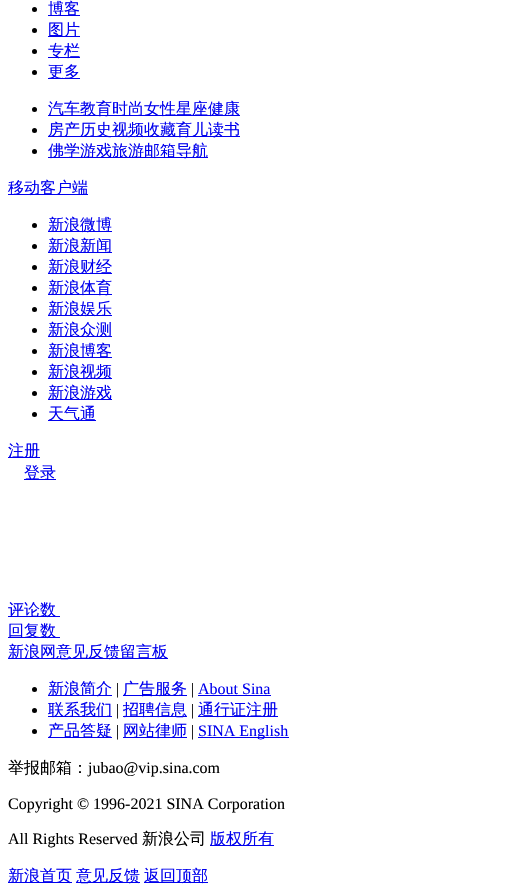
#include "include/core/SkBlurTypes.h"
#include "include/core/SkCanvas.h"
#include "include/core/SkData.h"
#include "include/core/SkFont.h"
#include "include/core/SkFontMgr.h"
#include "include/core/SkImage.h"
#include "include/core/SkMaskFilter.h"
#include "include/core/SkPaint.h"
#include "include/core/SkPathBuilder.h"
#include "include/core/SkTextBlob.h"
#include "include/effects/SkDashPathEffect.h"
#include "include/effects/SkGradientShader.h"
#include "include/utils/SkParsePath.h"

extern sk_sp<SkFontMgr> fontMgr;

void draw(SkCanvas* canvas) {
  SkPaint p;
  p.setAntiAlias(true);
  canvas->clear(SK_ColorWHITE);
  p.setColor(SK_ColorBLACK);
  canvas->drawCircle(34.5f, 9.5f, 2.5f, p);
  p.setColor(SkColorSetRGB(0, 0, 238));
  canvas->drawRect(SkRect::MakeLTRB(48, 15, 80, 16), p);
  p.setColor(SK_ColorBLACK);
  canvas->drawCircle(34.5f, 30.5f, 2.5f, p);
  p.setColor(SkColorSetRGB(0, 0, 238));
  canvas->drawRect(SkRect::MakeLTRB(48, 36, 80, 37), p);
  p.setColor(SK_ColorBLACK);
  canvas->drawCircle(34.5f, 51.5f, 2.5f, p);
  p.setColor(SkColorSetRGB(0, 0, 238));
  canvas->drawRect(SkRect::MakeLTRB(48, 57, 80, 58), p);
  p.setColor(SK_ColorBLACK);
  canvas->drawCircle(34.5f, 72.5f, 2.5f, p);
  p.setColor(SkColorSetRGB(0, 0, 238));
  canvas->drawRect(SkRect::MakeLTRB(48, 78, 80, 79), p);
  p.setColor(SK_ColorBLACK);
  canvas->drawCircle(34.5f, 109.5f, 2.5f, p);
  p.setColor(SkColorSetRGB(0, 0, 238));
  canvas->drawRect(SkRect::MakeLTRB(48, 115, 240, 116), p);
  p.setColor(SK_ColorBLACK);
  canvas->drawCircle(34.5f, 130.5f, 2.5f, p);
  p.setColor(SkColorSetRGB(0, 0, 238));
  canvas->drawRect(SkRect::MakeLTRB(48, 136, 240, 137), p);
  p.setColor(SK_ColorBLACK);
  canvas->drawCircle(34.5f, 151.5f, 2.5f, p);
  p.setColor(SkColorSetRGB(0, 0, 238));
  canvas->drawRect(SkRect::MakeLTRB(48, 157, 208, 158), p);
  canvas->drawRect(SkRect::MakeLTRB(8, 194, 88, 195), p);
  p.setColor(SK_ColorBLACK);
  canvas->drawCircle(34.5f, 225.5f, 2.5f, p);
  p.setColor(SkColorSetRGB(0, 0, 238));
  canvas->drawRect(SkRect::MakeLTRB(48, 231, 112, 232), p);
  p.setColor(SK_ColorBLACK);
  canvas->drawCircle(34.5f, 246.5f, 2.5f, p);
  p.setColor(SkColorSetRGB(0, 0, 238));
  canvas->drawRect(SkRect::MakeLTRB(48, 252, 112, 253), p);
  p.setColor(SK_ColorBLACK);
  canvas->drawCircle(34.5f, 267.5f, 2.5f, p);
  p.setColor(SkColorSetRGB(0, 0, 238));
  canvas->drawRect(SkRect::MakeLTRB(48, 273, 112, 274), p);
  p.setColor(SK_ColorBLACK);
  canvas->drawCircle(34.5f, 288.5f, 2.5f, p);
  p.setColor(SkColorSetRGB(0, 0, 238));
  canvas->drawRect(SkRect::MakeLTRB(48, 294, 112, 295), p);
  p.setColor(SK_ColorBLACK);
  canvas->drawCircle(34.5f, 309.5f, 2.5f, p);
  p.setColor(SkColorSetRGB(0, 0, 238));
  canvas->drawRect(SkRect::MakeLTRB(48, 315, 112, 316), p);
  p.setColor(SK_ColorBLACK);
  canvas->drawCircle(34.5f, 330.5f, 2.5f, p);
  p.setColor(SkColorSetRGB(0, 0, 238));
  canvas->drawRect(SkRect::MakeLTRB(48, 336, 112, 337), p);
  p.setColor(SK_ColorBLACK);
  canvas->drawCircle(34.5f, 351.5f, 2.5f, p);
  p.setColor(SkColorSetRGB(0, 0, 238));
  canvas->drawRect(SkRect::MakeLTRB(48, 357, 112, 358), p);
  p.setColor(SK_ColorBLACK);
  canvas->drawCircle(34.5f, 372.5f, 2.5f, p);
  p.setColor(SkColorSetRGB(0, 0, 238));
  canvas->drawRect(SkRect::MakeLTRB(48, 378, 112, 379), p);
  p.setColor(SK_ColorBLACK);
  canvas->drawCircle(34.5f, 393.5f, 2.5f, p);
  p.setColor(SkColorSetRGB(0, 0, 238));
  canvas->drawRect(SkRect::MakeLTRB(48, 399, 112, 400), p);
  p.setColor(SK_ColorBLACK);
  canvas->drawCircle(34.5f, 414.5f, 2.5f, p);
  p.setColor(SkColorSetRGB(0, 0, 238));
  canvas->drawRect(SkRect::MakeLTRB(48, 420, 96, 421), p);
  canvas->drawRect(SkRect::MakeLTRB(8, 457, 40, 458), p);
  canvas->drawRect(SkRect::MakeLTRB(24, 479, 56, 480), p);
  canvas->drawRect(SkRect::MakeLTRB(8, 616, 60, 617), p);
  canvas->drawRect(SkRect::MakeLTRB(8, 637, 60, 638), p);
  canvas->drawRect(SkRect::MakeLTRB(8, 658, 168, 659), p);
  p.setColor(SK_ColorBLACK);
  canvas->drawCircle(34.5f, 689.5f, 2.5f, p);
  p.setColor(SkColorSetRGB(0, 0, 238));
  canvas->drawRect(SkRect::MakeLTRB(48, 695, 112, 696), p);
  canvas->drawRect(SkRect::MakeLTRB(123, 695, 187, 696), p);
  canvas->drawRect(SkRect::MakeLTRB(198, 695, 271, 696), p);
  p.setColor(SK_ColorBLACK);
  canvas->drawCircle(34.5f, 710.5f, 2.5f, p);
  p.setColor(SkColorSetRGB(0, 0, 238));
  canvas->drawRect(SkRect::MakeLTRB(48, 716, 112, 717), p);
  canvas->drawRect(SkRect::MakeLTRB(123, 716, 187, 717), p);
  canvas->drawRect(SkRect::MakeLTRB(198, 716, 278, 717), p);
  p.setColor(SK_ColorBLACK);
  canvas->drawCircle(34.5f, 731.5f, 2.5f, p);
  p.setColor(SkColorSetRGB(0, 0, 238));
  canvas->drawRect(SkRect::MakeLTRB(48, 737, 112, 738), p);
  canvas->drawRect(SkRect::MakeLTRB(123, 737, 187, 738), p);
  canvas->drawRect(SkRect::MakeLTRB(198, 737, 289, 738), p);
  canvas->drawRect(SkRect::MakeLTRB(210, 845, 274, 846), p);
  canvas->drawRect(SkRect::MakeLTRB(8, 882, 72, 883), p);
  canvas->drawRect(SkRect::MakeLTRB(76, 882, 140, 883), p);
  canvas->drawRect(SkRect::MakeLTRB(144, 882, 208, 883), p);
  SkFont font1(fontMgr->matchFamilyStyle("WenQuanYi Zen Hei", SkFontStyle(500, SkFontStyle::kNormal_Width, SkFontStyle::kUpright_Slant)), 16);
  font1.setSubpixel(true);
  canvas->drawString("博客", 48, 14, font1, p);
  canvas->drawString("图片", 48, 35, font1, p);
  canvas->drawString("专栏", 48, 56, font1, p);
  canvas->drawString("更多", 48, 77, font1, p);
  canvas->drawString("汽车教育时尚女性星座健康", 48, 114, font1, p);
  canvas->drawString("房产历史视频收藏育儿读书", 48, 135, font1, p);
  canvas->drawString("佛学游戏旅游邮箱导航", 48, 156, font1, p);
  canvas->drawString("移动客户端", 8, 193, font1, p);
  canvas->drawString("新浪微博", 48, 230, font1, p);
  canvas->drawString("新浪新闻", 48, 251, font1, p);
  canvas->drawString("新浪财经", 48, 272, font1, p);
  canvas->drawString("新浪体育", 48, 293, font1, p);
  canvas->drawString("新浪娱乐", 48, 314, font1, p);
  canvas->drawString("新浪众测", 48, 335, font1, p);
  canvas->drawString("新浪博客", 48, 356, font1, p);
  canvas->drawString("新浪视频", 48, 377, font1, p);
  canvas->drawString("新浪游戏", 48, 398, font1, p);
  canvas->drawString("天气通", 48, 419, font1, p);
  canvas->drawString("注册", 8, 456, font1, p);
  canvas->drawString("登录", 24, 478, font1, p);
  canvas->drawString("评论数", 8, 615, font1, p);
  canvas->drawString("回复数", 8, 636, font1, p);
  canvas->drawString("新浪网意见反馈留言板", 8, 657, font1, p);
  canvas->drawString("新浪简介", 48, 694, font1, p);
  SkFont font2(fontMgr->matchFamilyStyle("Liberation Serif", SkFontStyle::Normal()), 16);
  font2.setSubpixel(true);
  p.setColor(SK_ColorBLACK);
  canvas->drawString("|", 116, 694, font2, p);
  p.setColor(SkColorSetRGB(0, 0, 238));
  canvas->drawString("广告服务", 123, 694, font1, p);
  p.setColor(SK_ColorBLACK);
  canvas->drawString("|", 191, 694, font2, p);
  p.setColor(SkColorSetRGB(0, 0, 238));
  canvas->drawString("About Sina", 198, 694, font2, p);
  canvas->drawString("联系我们", 48, 715, font1, p);
  p.setColor(SK_ColorBLACK);
  canvas->drawString("|", 116, 715, font2, p);
  p.setColor(SkColorSetRGB(0, 0, 238));
  canvas->drawString("招聘信息", 123, 715, font1, p);
  p.setColor(SK_ColorBLACK);
  canvas->drawString("|", 191, 715, font2, p);
  p.setColor(SkColorSetRGB(0, 0, 238));
  canvas->drawString("通行证注册", 198, 715, font1, p);
  canvas->drawString("产品答疑", 48, 736, font1, p);
  p.setColor(SK_ColorBLACK);
  canvas->drawString("|", 116, 736, font2, p);
  p.setColor(SkColorSetRGB(0, 0, 238));
  canvas->drawString("网站律师", 123, 736, font1, p);
  p.setColor(SK_ColorBLACK);
  canvas->drawString("|", 191, 736, font2, p);
  p.setColor(SkColorSetRGB(0, 0, 238));
  canvas->drawString("SINA English", 198, 736, font2, p);
  p.setColor(SK_ColorBLACK);
  canvas->drawString("举报邮箱：", 8, 773, font1, p);
  canvas->drawString("jubao@vip.sina.com", 88, 773, font2, p);
  canvas->drawString("Copyright © 1996-2021 SINA Corporation", 8, 809, font2, p);
  canvas->drawString("All Rights Reserved", 8, 844, font2, p);
  canvas->drawString("新浪公司", 142, 844, font1, p);
  p.setColor(SkColorSetRGB(0, 0, 238));
  canvas->drawString("版权所有", 210, 844, font1, p);
  canvas->drawString("新浪首页", 8, 881, font1, p);
  canvas->drawString("意见反馈", 76, 881, font1, p);
  canvas->drawString("返回顶部", 144, 881, font1, p);
}
